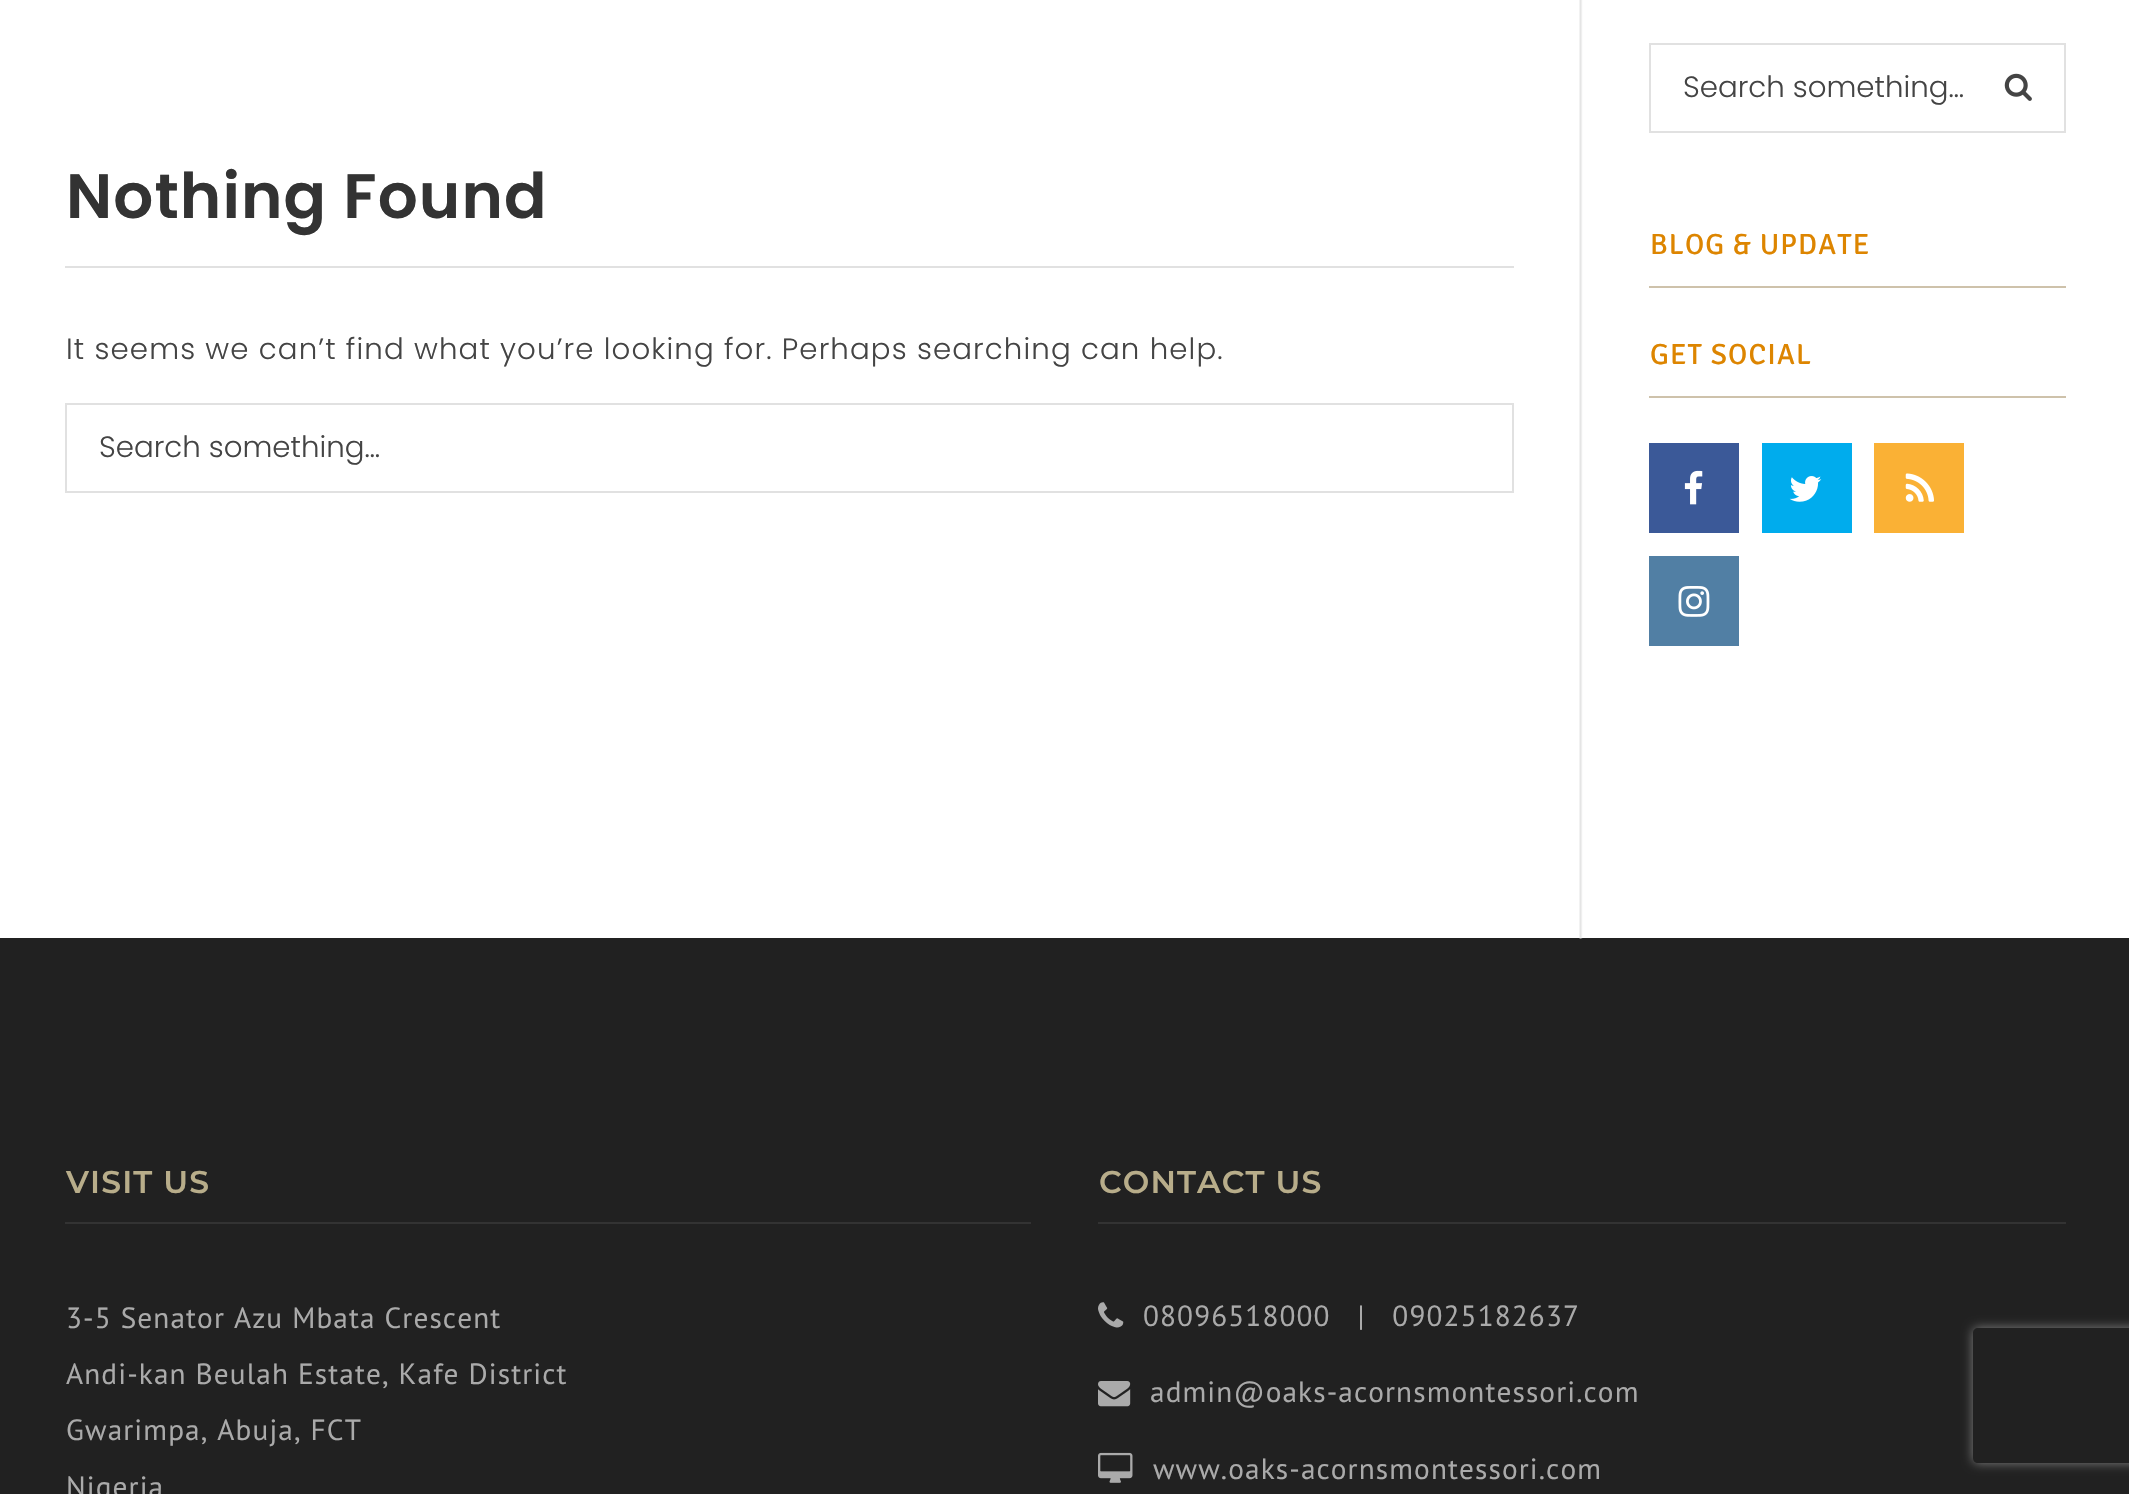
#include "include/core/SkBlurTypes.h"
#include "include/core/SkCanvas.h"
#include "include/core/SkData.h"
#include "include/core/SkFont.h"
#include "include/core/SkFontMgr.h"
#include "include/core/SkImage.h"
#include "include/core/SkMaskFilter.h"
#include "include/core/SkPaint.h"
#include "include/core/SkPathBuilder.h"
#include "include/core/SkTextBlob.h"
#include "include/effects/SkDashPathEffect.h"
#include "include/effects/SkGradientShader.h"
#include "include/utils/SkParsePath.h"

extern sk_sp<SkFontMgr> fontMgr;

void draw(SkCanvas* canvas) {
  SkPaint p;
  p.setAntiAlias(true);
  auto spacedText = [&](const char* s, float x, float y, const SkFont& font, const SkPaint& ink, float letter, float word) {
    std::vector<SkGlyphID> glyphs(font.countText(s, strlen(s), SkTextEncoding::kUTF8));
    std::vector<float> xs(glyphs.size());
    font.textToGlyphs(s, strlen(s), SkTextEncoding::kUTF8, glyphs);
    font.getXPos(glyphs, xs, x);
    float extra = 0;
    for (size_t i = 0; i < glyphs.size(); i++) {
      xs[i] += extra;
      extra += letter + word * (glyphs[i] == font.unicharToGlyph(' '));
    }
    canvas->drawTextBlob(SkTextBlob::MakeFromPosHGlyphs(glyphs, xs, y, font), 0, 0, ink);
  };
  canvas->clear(SK_ColorWHITE);
  p.setColor(SkColorSetRGB(33, 33, 33));
  canvas->drawRect(SkRect::MakeLTRB(0, 938, 2129, 1494), p);
  canvas->drawImageRect(SkImages::DeferredFromEncodedData(SkData::MakeFromFileName("images/1.png")), SkRect::MakeLTRB(1579, 0, 1583, 939), SkSamplingOptions());
  p.setColor(SkColorSetRGB(225, 225, 225));
  canvas->drawRect(SkRect::MakeLTRB(65, 266, 1514, 268), p);
  p.setStyle(SkPaint::kStroke_Style);
  p.setStrokeWidth(2);
  canvas->drawRect(SkRect::MakeLTRB(66, 404, 1513, 492), p);
  canvas->drawRect(SkRect::MakeLTRB(1650, 44, 2065, 132), p);
  canvas->drawImageRect(SkImages::DeferredFromEncodedData(SkData::MakeFromFileName("images/2.png")), SkRect::MakeLTRB(2004, 73, 2032, 101), SkSamplingOptions());
  p.setStyle(SkPaint::kFill_Style);
  p.setColor(SkColorSetRGB(206, 194, 171));
  canvas->drawRect(SkRect::MakeLTRB(1649, 286, 2066, 288), p);
  canvas->drawRect(SkRect::MakeLTRB(1649, 396, 2066, 398), p);
  p.setColor(SkColorSetRGB(59, 89, 152));
  canvas->drawRect(SkRect::MakeLTRB(1649, 443, 1739, 533), p);
  canvas->drawImageRect(SkImages::DeferredFromEncodedData(SkData::MakeFromFileName("images/3.png")), SkRect::MakeLTRB(1684, 470, 1703, 505), SkSamplingOptions());
  p.setColor(SkColorSetRGB(0, 172, 237));
  canvas->drawRect(SkRect::MakeLTRB(1762, 443, 1852, 533), p);
  canvas->drawImageRect(SkImages::DeferredFromEncodedData(SkData::MakeFromFileName("images/4.png")), SkRect::MakeLTRB(1789, 476, 1822, 502), SkSamplingOptions());
  p.setColor(SkColorSetRGB(250, 177, 53));
  canvas->drawRect(SkRect::MakeLTRB(1874, 443, 1964, 533), p);
  canvas->drawImageRect(SkImages::DeferredFromEncodedData(SkData::MakeFromFileName("images/5.png")), SkRect::MakeLTRB(1905, 473, 1934, 502), SkSamplingOptions());
  p.setColor(SkColorSetRGB(81, 127, 164));
  canvas->drawRect(SkRect::MakeLTRB(1649, 556, 1739, 646), p);
  canvas->drawImageRect(SkImages::DeferredFromEncodedData(SkData::MakeFromFileName("images/6.png")), SkRect::MakeLTRB(1678, 586, 1710, 617), SkSamplingOptions());
  p.setColor(SkColorSetRGB(51, 51, 51));
  canvas->drawRect(SkRect::MakeLTRB(65, 1222, 1031, 1224), p);
  canvas->drawRect(SkRect::MakeLTRB(1098, 1222, 2066, 1224), p);
  canvas->drawImageRect(SkImages::DeferredFromEncodedData(SkData::MakeFromFileName("images/7.png")), SkRect::MakeLTRB(1098, 1302, 1124, 1328), SkSamplingOptions());
  canvas->drawImageRect(SkImages::DeferredFromEncodedData(SkData::MakeFromFileName("images/8.png")), SkRect::MakeLTRB(1098, 1381, 1131, 1407), SkSamplingOptions());
  canvas->drawImageRect(SkImages::DeferredFromEncodedData(SkData::MakeFromFileName("images/9.png")), SkRect::MakeLTRB(1098, 1452, 1133, 1483), SkSamplingOptions());
  canvas->save();
  canvas->clipPath(SkPathBuilder(SkPathFillType::kEvenOdd).moveTo(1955, 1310).lineTo(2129, 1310).lineTo(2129, 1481).lineTo(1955, 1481).close().moveTo(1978, 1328).lineTo(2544, 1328).cubicTo(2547, 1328, 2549, 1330, 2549, 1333).lineTo(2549, 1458).cubicTo(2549, 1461, 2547, 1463, 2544, 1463).lineTo(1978, 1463).cubicTo(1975, 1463, 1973, 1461, 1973, 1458).lineTo(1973, 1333).cubicTo(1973, 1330, 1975, 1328, 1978, 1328).close().detach(), true);
  p.setColor(SkColorSetRGB(128, 128, 128));
  p.setMaskFilter(SkMaskFilter::MakeBlur(kNormal_SkBlurStyle, 5.5f));
  canvas->drawRoundRect(SkRect::MakeLTRB(1973, 1328, 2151, 1463), 5, 5, p);
  p.setMaskFilter(nullptr);
  canvas->restore();
  SkFont font1(fontMgr->matchFamilyStyle("Poppins", SkFontStyle(600, SkFontStyle::kNormal_Width, SkFontStyle::kUpright_Slant)), 62.75f);
  font1.setSubpixel(true);
  p.setColor(SkColorSetRGB(51, 51, 51));
  spacedText("Nothing Found", 66, 218, font1, p, 1.12f, 0);
  SkFont font2(fontMgr->matchFamilyStyle("Poppins", SkFontStyle(300, SkFontStyle::kNormal_Width, SkFontStyle::kUpright_Slant)), 29.25f);
  font2.setSubpixel(true);
  p.setColor(SkColorSetRGB(68, 68, 68));
  spacedText("It seems we can’t find what you’re looking for. Perhaps searching can help.", 66, 359, font2, p, 1.12f, 0);
  canvas->drawString("Search something…", 99, 457, font2, p);
  canvas->drawString("Search something…", 1683, 97, font2, p);
  SkFont font3(fontMgr->matchFamilyStyle("Signika", SkFontStyle::Normal()), 29.25f);
  font3.setSubpixel(true);
  p.setColor(SkColorSetRGB(221, 133, 0));
  spacedText("BLOG & UPDATE", 1650, 254, font3, p, 1.12f, 0);
  spacedText("GET SOCIAL", 1650, 364, font3, p, 1.12f, 0);
  SkFont font4(fontMgr->matchFamilyStyle("Montserrat", SkFontStyle(100, SkFontStyle::kNormal_Width, SkFontStyle::kUpright_Slant)), 31.5f);
  font4.setSubpixel(true);
  p.setColor(SkColorSetRGB(184, 173, 138));
  spacedText("VISIT US", 66, 1193, font4, p, 1.12f, 0);
  SkFont font5(fontMgr->matchFamilyStyle("PT Sans", SkFontStyle::Normal()), 29.25f);
  font5.setSubpixel(true);
  p.setColor(SkColorSetRGB(170, 170, 170));
  spacedText("3-5 Senator Azu Mbata Crescent", 66, 1328, font5, p, 1.12f, 0);
  spacedText("Andi-kan Beulah Estate, Kafe District", 66, 1384, font5, p, 1.12f, 0);
  spacedText("Gwarimpa, Abuja, FCT", 66, 1440, font5, p, 1.12f, 0);
  spacedText("Nigeria", 66, 1497, font5, p, 1.12f, 0);
  p.setColor(SkColorSetRGB(184, 173, 138));
  spacedText("CONTACT US", 1099, 1193, font4, p, 1.12f, 0);
  p.setColor(SkColorSetRGB(170, 170, 170));
  spacedText("08096518000   |   09025182637", 1143, 1326, font5, p, 1.12f, 0);
  spacedText("admin@oaks-acornsmontessori.com", 1150, 1402, font5, p, 1.12f, 0);
  spacedText("www.oaks-acornsmontessori.com", 1153, 1479, font5, p, 1.12f, 0);
}
